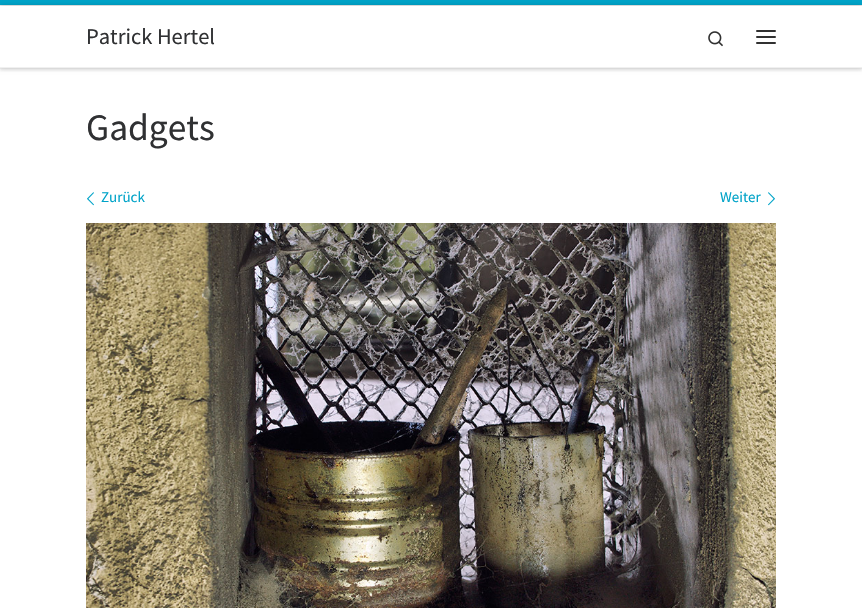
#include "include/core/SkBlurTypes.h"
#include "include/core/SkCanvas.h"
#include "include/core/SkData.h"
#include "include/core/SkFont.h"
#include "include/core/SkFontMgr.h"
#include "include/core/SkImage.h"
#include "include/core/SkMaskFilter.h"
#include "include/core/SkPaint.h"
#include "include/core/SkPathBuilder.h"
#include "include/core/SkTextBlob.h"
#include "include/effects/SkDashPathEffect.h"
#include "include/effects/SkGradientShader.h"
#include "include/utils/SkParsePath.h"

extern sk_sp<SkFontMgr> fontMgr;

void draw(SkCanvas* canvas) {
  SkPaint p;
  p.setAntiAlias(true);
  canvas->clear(SK_ColorWHITE);
  canvas->save();
  canvas->clipRect(SkRect::MakeLTRB(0, 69, 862, 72));
  p.setColor(SkColorSetARGB(20, 102, 102, 102));
  p.setMaskFilter(SkMaskFilter::MakeBlur(kNormal_SkBlurStyle, 1));
  canvas->drawRect(SkRect::MakeLTRB(0, 2, 862, 71), p);
  p.setMaskFilter(nullptr);
  canvas->restore();
  p.setColor(SkColorSetRGB(0, 163, 200));
  canvas->drawRect(SkRect::MakeLTRB(0, 0, 862, 5), p);
  p.setColor(SkColorSetRGB(236, 236, 236));
  canvas->drawRect(SkRect::MakeLTRB(0, 5, 862, 6), p);
  p.setColor(SkColorSetRGB(239, 239, 239));
  canvas->drawRect(SkRect::MakeLTRB(0, 68, 862, 69), p);
  canvas->save();
  canvas->clipPath(SkPathBuilder(SkPathFillType::kEvenOdd).moveTo(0, 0).lineTo(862, 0).lineTo(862, 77).lineTo(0, 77).close().moveTo(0, 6).lineTo(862, 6).lineTo(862, 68).lineTo(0, 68).close().detach(), true);
  p.setColor(SkColorSetARGB(51, 0, 0, 0));
  p.setMaskFilter(SkMaskFilter::MakeBlur(kNormal_SkBlurStyle, 2.5f));
  canvas->drawRect(SkRect::MakeLTRB(0, 6, 862, 68), p);
  p.setMaskFilter(nullptr);
  canvas->restore();
  canvas->drawImageRect(SkImages::DeferredFromEncodedData(SkData::MakeFromFileName("images/1.png")), SkRect::MakeLTRB(708, 31, 723, 47), SkSamplingOptions());
  p.setColor(SkColorSetRGB(49, 49, 49));
  canvas->drawRoundRect(SkRect::MakeLTRB(756, 30, 776, 32), 1, 1, p);
  canvas->drawRoundRect(SkRect::MakeLTRB(756, 36, 776, 38), 1, 1, p);
  canvas->drawRoundRect(SkRect::MakeLTRB(756, 42, 776, 44), 1, 1, p);
  p.setColor(SkColorSetRGB(240, 240, 240));
  canvas->drawRect(SkRect::MakeLTRB(0, 67, 862, 68), p);
  canvas->drawImageRect(SkImages::DeferredFromEncodedData(SkData::MakeFromFileName("images/2.png")), SkRect::MakeLTRB(87, 192, 94, 206), SkSamplingOptions());
  canvas->drawImageRect(SkImages::DeferredFromEncodedData(SkData::MakeFromFileName("images/3.png")), SkRect::MakeLTRB(768, 192, 775, 206), SkSamplingOptions());
  canvas->drawImageRect(SkImages::DeferredFromEncodedData(SkData::MakeFromFileName("images/4.png")), SkRect::MakeLTRB(86, 223, 776, 608), SkSamplingOptions());
  SkFont font1(fontMgr->matchFamilyStyle("Source Sans Pro", SkFontStyle::Normal()), 22.5f);
  font1.setSubpixel(true);
  p.setColor(SkColorSetRGB(48, 49, 51));
  canvas->drawString("Patrick Hertel", 86, 44, font1, p);
  SkFont font2(fontMgr->matchFamilyStyle("Source Sans Pro", SkFontStyle::Normal()), 37.5f);
  font2.setSubpixel(true);
  canvas->drawString("Gadgets", 86, 140, font2, p);
  SkFont font3(fontMgr->matchFamilyStyle("Source Sans Pro", SkFontStyle::Normal()), 15);
  font3.setSubpixel(true);
  p.setColor(SkColorSetRGB(0, 163, 200));
  canvas->drawString("Zurück", 101, 202, font3, p);
  canvas->drawString("Weiter", 720, 202, font3, p);
}
